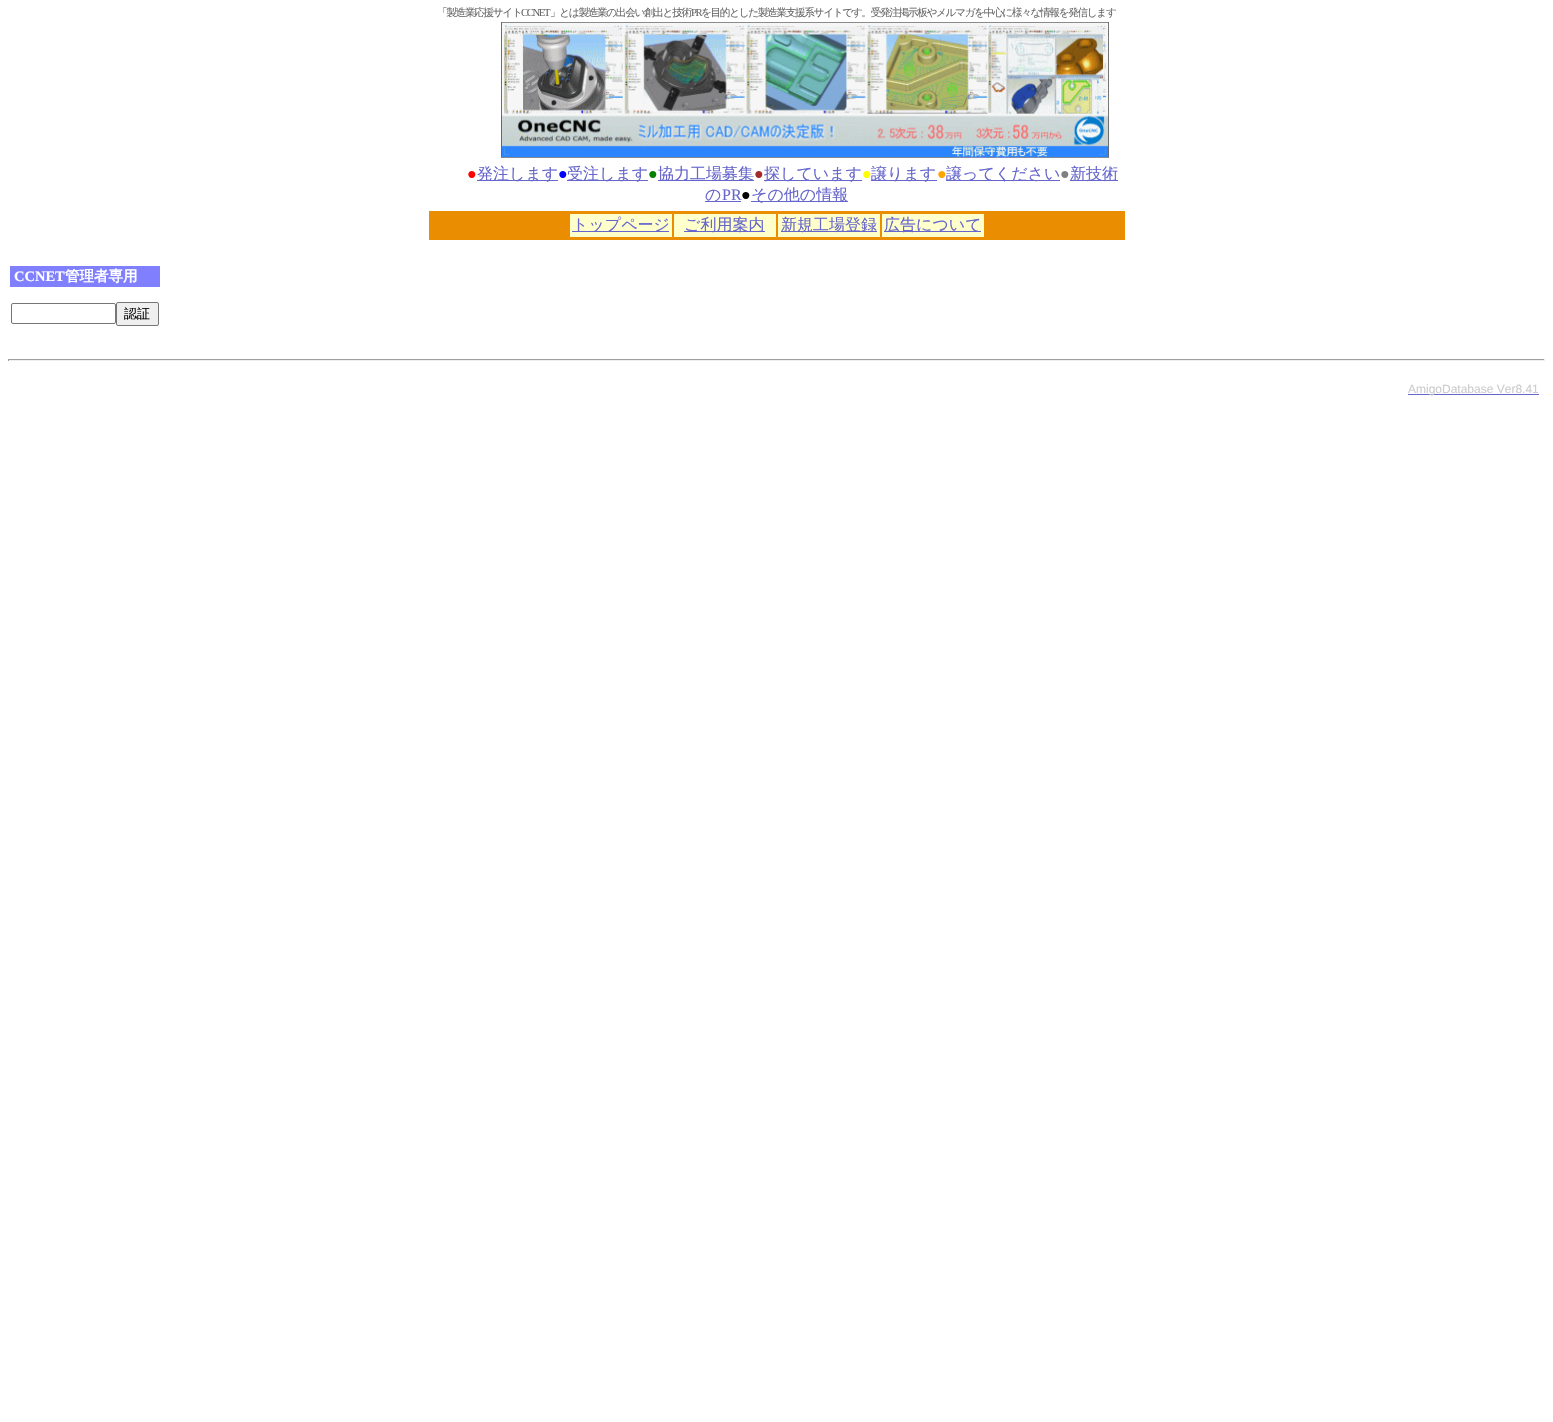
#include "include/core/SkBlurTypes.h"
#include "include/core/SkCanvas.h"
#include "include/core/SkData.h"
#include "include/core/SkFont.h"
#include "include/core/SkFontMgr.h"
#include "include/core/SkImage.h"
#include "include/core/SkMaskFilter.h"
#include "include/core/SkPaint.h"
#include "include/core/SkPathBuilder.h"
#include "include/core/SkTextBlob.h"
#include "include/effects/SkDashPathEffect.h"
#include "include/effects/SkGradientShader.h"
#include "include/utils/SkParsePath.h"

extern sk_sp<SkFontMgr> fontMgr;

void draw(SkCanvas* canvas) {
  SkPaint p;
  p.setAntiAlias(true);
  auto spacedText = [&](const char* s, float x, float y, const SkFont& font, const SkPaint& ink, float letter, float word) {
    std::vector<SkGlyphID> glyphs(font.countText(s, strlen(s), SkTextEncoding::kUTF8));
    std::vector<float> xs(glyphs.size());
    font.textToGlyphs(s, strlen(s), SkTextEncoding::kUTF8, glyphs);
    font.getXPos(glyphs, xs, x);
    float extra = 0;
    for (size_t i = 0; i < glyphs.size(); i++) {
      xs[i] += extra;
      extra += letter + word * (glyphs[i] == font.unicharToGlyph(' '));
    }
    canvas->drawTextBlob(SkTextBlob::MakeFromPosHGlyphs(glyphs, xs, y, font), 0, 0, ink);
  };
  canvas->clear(SK_ColorWHITE);
  canvas->drawImageRect(SkImages::DeferredFromEncodedData(SkData::MakeFromFileName("images/1.png")), SkRect::MakeLTRB(501, 22, 1109, 158), SkSamplingOptions());
  p.setColor(SkColorSetRGB(102, 102, 204));
  canvas->drawRect(SkRect::MakeLTRB(477, 180, 558, 181), p);
  canvas->drawRect(SkRect::MakeLTRB(567, 180, 648, 181), p);
  canvas->drawRect(SkRect::MakeLTRB(658, 180, 754, 181), p);
  canvas->drawRect(SkRect::MakeLTRB(764, 180, 862, 181), p);
  canvas->drawRect(SkRect::MakeLTRB(871, 180, 937, 181), p);
  canvas->drawRect(SkRect::MakeLTRB(946, 180, 1060, 181), p);
  canvas->drawRect(SkRect::MakeLTRB(1070, 180, 1118, 181), p);
  canvas->drawRect(SkRect::MakeLTRB(705, 201, 741, 202), p);
  canvas->drawRect(SkRect::MakeLTRB(751, 201, 848, 202), p);
  p.setColor(SkColorSetRGB(235, 141, 1));
  canvas->drawRect(SkRect::MakeLTRB(429, 211, 1125, 240), p);
  p.setColor(SkColorSetRGB(255, 255, 204));
  canvas->drawRect(SkRect::MakeLTRB(570, 214, 672, 237), p);
  p.setColor(SkColorSetRGB(102, 102, 204));
  canvas->drawRect(SkRect::MakeLTRB(572, 231, 669, 232), p);
  p.setColor(SkColorSetRGB(255, 255, 204));
  canvas->drawRect(SkRect::MakeLTRB(674, 214, 776, 237), p);
  p.setColor(SkColorSetRGB(102, 102, 204));
  canvas->drawRect(SkRect::MakeLTRB(684, 231, 765, 232), p);
  p.setColor(SkColorSetRGB(255, 255, 204));
  canvas->drawRect(SkRect::MakeLTRB(778, 214, 880, 237), p);
  p.setColor(SkColorSetRGB(102, 102, 204));
  canvas->drawRect(SkRect::MakeLTRB(781, 231, 877, 232), p);
  p.setColor(SkColorSetRGB(255, 255, 204));
  canvas->drawRect(SkRect::MakeLTRB(882, 214, 984, 237), p);
  p.setColor(SkColorSetRGB(102, 102, 204));
  canvas->drawRect(SkRect::MakeLTRB(884, 231, 981, 232), p);
  p.setColor(SkColorSetRGB(128, 128, 255));
  canvas->drawRect(SkRect::MakeLTRB(10, 266, 160, 287), p);
  p.setStyle(SkPaint::kStroke_Style);
  p.setStrokeWidth(1);
  p.setColor(SkColorSetRGB(118, 118, 118));
  canvas->drawRoundRect(SkRect::MakeLTRB(11.5f, 303.5f, 115.5f, 323.5f), 1.5f, 1.5f, p);
  p.setStyle(SkPaint::kFill_Style);
  p.setColor(SkColorSetRGB(239, 239, 239));
  canvas->drawRoundRect(SkRect::MakeLTRB(116.5f, 302.5f, 158.5f, 325.5f), 1.5f, 1.5f, p);
  p.setStyle(SkPaint::kStroke_Style);
  p.setColor(SkColorSetRGB(118, 118, 118));
  canvas->drawRoundRect(SkRect::MakeLTRB(116.5f, 302.5f, 158.5f, 325.5f), 1.5f, 1.5f, p);
  p.setStyle(SkPaint::kFill_Style);
  p.setColor(SkColorSetRGB(159, 159, 159));
  canvas->drawRect(SkRect::MakeLTRB(8, 359, 1545, 360), p);
  p.setColor(SkColorSetRGB(238, 238, 238));
  canvas->drawRect(SkRect::MakeLTRB(1544, 359, 1545, 361), p);
  canvas->drawRect(SkRect::MakeLTRB(8, 360, 1545, 361), p);
  p.setColor(SkColorSetRGB(159, 159, 159));
  canvas->drawRect(SkRect::MakeLTRB(8, 359, 9, 361), p);
  p.setColor(SkColorSetRGB(102, 102, 204));
  canvas->drawRect(SkRect::MakeLTRB(1408, 394, 1539, 395), p);
  SkFont font1(fontMgr->matchFamilyStyle("WenQuanYi Zen Hei", SkFontStyle(500, SkFontStyle::kNormal_Width, SkFontStyle::kUpright_Slant)), 10.65f);
  font1.setSubpixel(true);
  p.setColor(SkColorSetRGB(102, 102, 102));
  spacedText("「製造業応援サイト", 437, 16, font1, p, -1.35f, 0);
  SkFont font2(fontMgr->matchFamilyStyle("Liberation Serif", SkFontStyle::Normal()), 10.65f);
  font2.setSubpixel(true);
  spacedText("CCNET", 521, 16, font2, p, -1.35f, 0);
  spacedText("」とは製造業の出会い創出と技術", 550, 16, font1, p, -1.35f, 0);
  spacedText("PR", 691, 16, font2, p, -1.35f, 0);
  spacedText("を目的とした製造業支援系サイトです。受発注掲示板やメルマガを中心に様々な情報を発信します", 701, 16, font1, p, -1.35f, 0);
  SkFont font3(fontMgr->matchFamilyStyle("Liberation Serif", SkFontStyle::Normal()), 16);
  font3.setSubpixel(true);
  p.setColor(SkColorSetRGB(255, 0, 0));
  canvas->drawString("●", 467, 179, font3, p);
  SkFont font4(fontMgr->matchFamilyStyle("WenQuanYi Zen Hei", SkFontStyle(500, SkFontStyle::kNormal_Width, SkFontStyle::kUpright_Slant)), 16);
  font4.setSubpixel(true);
  p.setColor(SkColorSetRGB(102, 102, 204));
  canvas->drawString("発注します", 477, 179, font4, p);
  p.setColor(SkColorSetRGB(0, 0, 255));
  canvas->drawString("●", 558, 179, font3, p);
  p.setColor(SkColorSetRGB(102, 102, 204));
  canvas->drawString("受注します", 567, 179, font4, p);
  p.setColor(SkColorSetRGB(0, 128, 0));
  canvas->drawString("●", 648, 179, font3, p);
  p.setColor(SkColorSetRGB(102, 102, 204));
  canvas->drawString("協力工場募集", 658, 179, font4, p);
  p.setColor(SkColorSetRGB(165, 42, 42));
  canvas->drawString("●", 754, 179, font3, p);
  p.setColor(SkColorSetRGB(102, 102, 204));
  canvas->drawString("探しています", 764, 179, font4, p);
  p.setColor(SkColorSetRGB(255, 255, 0));
  canvas->drawString("●", 862, 179, font3, p);
  p.setColor(SkColorSetRGB(102, 102, 204));
  canvas->drawString("譲ります", 871, 179, font4, p);
  p.setColor(SkColorSetRGB(255, 165, 0));
  canvas->drawString("●", 937, 179, font3, p);
  p.setColor(SkColorSetRGB(102, 102, 204));
  canvas->drawString("譲ってください", 946, 179, font4, p);
  p.setColor(SkColorSetRGB(128, 128, 128));
  canvas->drawString("●", 1060, 179, font3, p);
  p.setColor(SkColorSetRGB(102, 102, 204));
  canvas->drawString("新技術", 1070, 179, font4, p);
  canvas->drawString("の", 705, 200, font4, p);
  canvas->drawString("PR", 722, 200, font3, p);
  p.setColor(SK_ColorBLACK);
  canvas->drawString("●", 741, 200, font3, p);
  p.setColor(SkColorSetRGB(102, 102, 204));
  canvas->drawString("その他の情報", 751, 200, font4, p);
  canvas->drawString("トップページ", 572, 230, font4, p);
  canvas->drawString("ご利用案内", 684, 230, font4, p);
  canvas->drawString("新規工場登録", 781, 230, font4, p);
  canvas->drawString("広告について", 884, 230, font4, p);
  SkFont font5(fontMgr->matchFamilyStyle("Liberation Serif", SkFontStyle::Bold()), 14.5f);
  font5.setSubpixel(true);
  p.setColor(SK_ColorWHITE);
  canvas->drawString("CCNET", 14, 281, font5, p);
  SkFont font6(fontMgr->matchFamilyStyle("WenQuanYi Zen Hei", SkFontStyle::Bold()), 14.5f);
  font6.setSubpixel(true);
  canvas->drawString("管理者専用", 65, 281, font6, p);
  SkFont font7(fontMgr->matchFamilyStyle("WenQuanYi Zen Hei", SkFontStyle(500, SkFontStyle::kNormal_Width, SkFontStyle::kUpright_Slant)), 13);
  font7.setSubpixel(true);
  p.setColor(SK_ColorBLACK);
  canvas->drawString("認証", 124, 318, font7, p);
  SkFont font8(fontMgr->matchFamilyStyle("Liberation Sans", SkFontStyle::Normal()), 12);
  font8.setSubpixel(true);
  p.setColor(SkColorSetRGB(204, 204, 204));
  canvas->drawString("AmigoDatabase Ver8.41", 1408, 393, font8, p);
}
